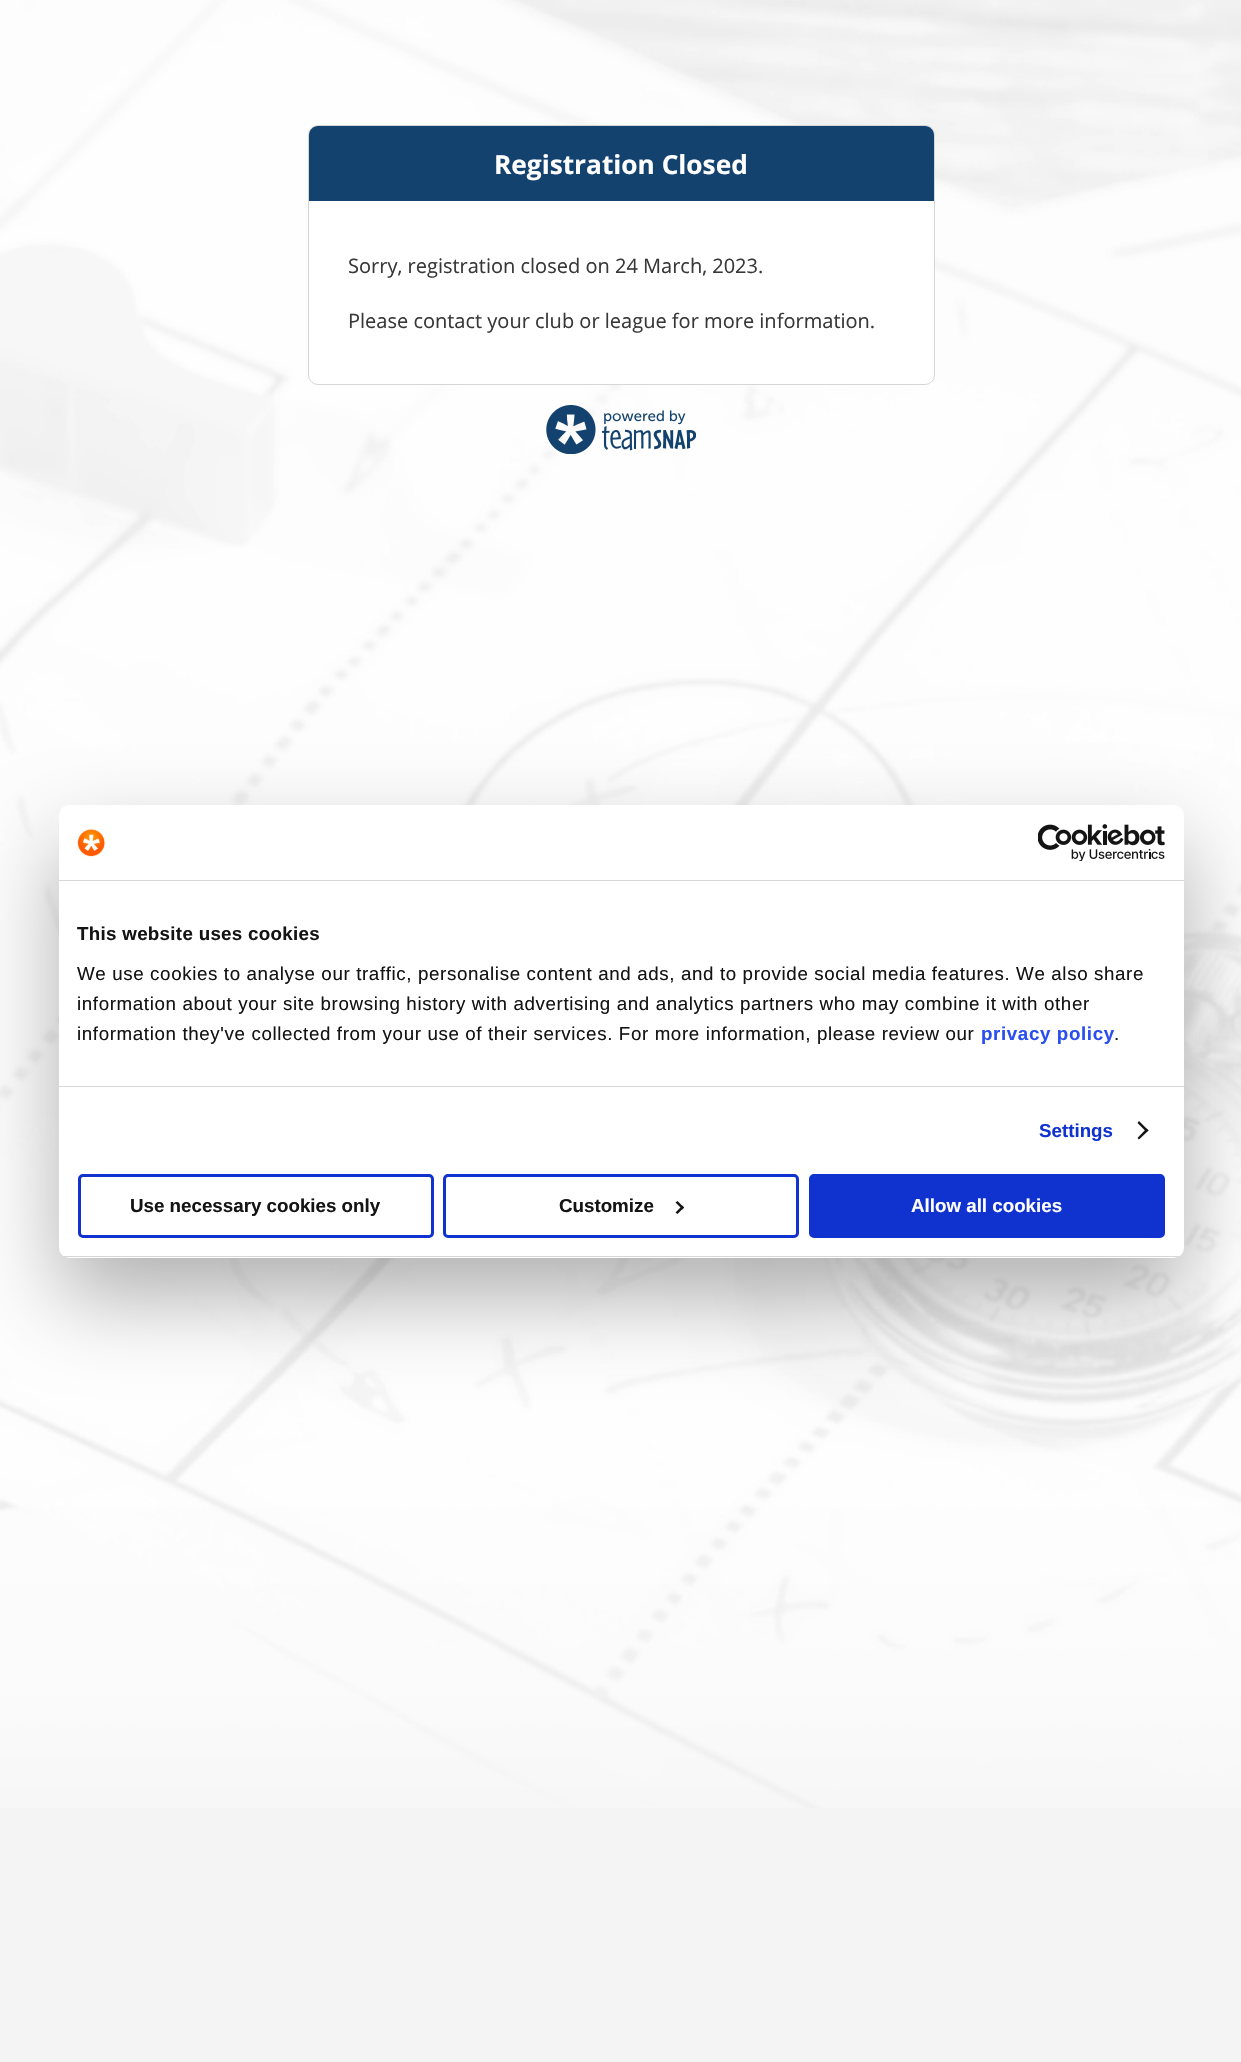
#include "include/core/SkBlurTypes.h"
#include "include/core/SkCanvas.h"
#include "include/core/SkData.h"
#include "include/core/SkFont.h"
#include "include/core/SkFontMgr.h"
#include "include/core/SkImage.h"
#include "include/core/SkMaskFilter.h"
#include "include/core/SkPaint.h"
#include "include/core/SkPathBuilder.h"
#include "include/core/SkTextBlob.h"
#include "include/effects/SkDashPathEffect.h"
#include "include/effects/SkGradientShader.h"
#include "include/utils/SkParsePath.h"

extern sk_sp<SkFontMgr> fontMgr;

void draw(SkCanvas* canvas) {
  SkPaint p;
  p.setAntiAlias(true);
  auto spacedText = [&](const char* s, float x, float y, const SkFont& font, const SkPaint& ink, float letter, float word) {
    std::vector<SkGlyphID> glyphs(font.countText(s, strlen(s), SkTextEncoding::kUTF8));
    std::vector<float> xs(glyphs.size());
    font.textToGlyphs(s, strlen(s), SkTextEncoding::kUTF8, glyphs);
    font.getXPos(glyphs, xs, x);
    float extra = 0;
    for (size_t i = 0; i < glyphs.size(); i++) {
      xs[i] += extra;
      extra += letter + word * (glyphs[i] == font.unicharToGlyph(' '));
    }
    canvas->drawTextBlob(SkTextBlob::MakeFromPosHGlyphs(glyphs, xs, y, font), 0, 0, ink);
  };
  canvas->clear(SkColorSetRGB(244, 244, 244));
  canvas->drawImageRect(SkImages::DeferredFromEncodedData(SkData::MakeFromFileName("images/1.png")), SkRect::MakeLTRB(0, 0, 1241, 1808), SkSamplingOptions());
  p.setColor(SK_ColorWHITE);
  canvas->drawRoundRect(SkRect::MakeLTRB(308.5f, 125.5f, 934.5f, 384.5f), 9.5f, 9.5f, p);
  p.setStyle(SkPaint::kStroke_Style);
  p.setStrokeWidth(1);
  p.setColor(SkColorSetRGB(214, 214, 214));
  canvas->drawRoundRect(SkRect::MakeLTRB(308.5f, 125.5f, 934.5f, 384.5f), 9.5f, 9.5f, p);
  p.setStyle(SkPaint::kFill_Style);
  p.setColor(SkColorSetRGB(19, 66, 110));
  canvas->drawPath(SkPathBuilder().moveTo(318, 126).lineTo(925, 126).cubicTo(930, 126, 934, 130, 934, 135).lineTo(934, 201).lineTo(309, 201).lineTo(309, 135).cubicTo(309, 130, 313, 126, 318, 126).close().detach(), p);
  canvas->drawImageRect(SkImages::DeferredFromEncodedData(SkData::MakeFromFileName("images/2.png")), SkRect::MakeLTRB(546, 405, 696, 454), SkSamplingOptions());
  p.setColor(SkColorSetARGB(77, 0, 0, 0));
  p.setMaskFilter(SkMaskFilter::MakeBlur(kNormal_SkBlurStyle, 42.5f));
  canvas->drawRoundRect(SkRect::MakeLTRB(59, 845, 1184, 1298), 10, 10, p);
  p.setMaskFilter(nullptr);
  p.setColor(SK_ColorWHITE);
  canvas->drawRoundRect(SkRect::MakeLTRB(59, 805, 1184, 1258), 10, 10, p);
  p.setColor(SkColorSetRGB(214, 214, 214));
  canvas->drawRect(SkRect::MakeLTRB(59, 880, 1184, 881), p);
  canvas->drawImageRect(SkImages::DeferredFromEncodedData(SkData::MakeFromFileName("images/3.png")), SkRect::MakeLTRB(77, 829, 105, 857), SkSamplingOptions());
  canvas->drawImageRect(SkImages::DeferredFromEncodedData(SkData::MakeFromFileName("images/4.png")), SkRect::MakeLTRB(1038, 824, 1165, 861), SkSamplingOptions());
  canvas->drawRect(SkRect::MakeLTRB(59, 1086, 1184, 1087), p);
  p.setColor(SkColorSetRGB(20, 20, 20));
  canvas->drawPath(SkPathBuilder().moveTo(1139, 1121).lineTo(1148.5f, 1130.5f).lineTo(1146.5f, 1132).lineTo(1137.5f, 1123).close().detach(), p);
  canvas->drawPath(SkPathBuilder().moveTo(1146.5f, 1128.5f).lineTo(1148.5f, 1130.5f).lineTo(1139, 1139.5f).lineTo(1137.5f, 1138).close().detach(), p);
  canvas->save();
  canvas->clipPath(SkPathBuilder().moveTo(69, 805).lineTo(1174, 805).cubicTo(1179.5f, 805, 1184, 809.5f, 1184, 815).lineTo(1184, 1248).cubicTo(1184, 1253.5f, 1179.5f, 1258, 1174, 1258).lineTo(69, 1258).cubicTo(63.5f, 1258, 59, 1253.5f, 59, 1248).lineTo(59, 815).cubicTo(59, 809.5f, 63.5f, 805, 69, 805).close().detach(), true);
  p.setColor(SkColorSetRGB(214, 214, 214));
  canvas->drawRect(SkRect::MakeLTRB(59, 1256, 1184, 1257), p);
  canvas->restore();
  p.setStyle(SkPaint::kStroke_Style);
  p.setStrokeWidth(3);
  p.setColor(SkColorSetRGB(16, 50, 207));
  canvas->drawRoundRect(SkRect::MakeLTRB(79.5f, 1175.5f, 432.5f, 1236.5f), 3.5f, 3.5f, p);
  canvas->drawRoundRect(SkRect::MakeLTRB(444.5f, 1175.5f, 797.5f, 1236.5f), 3.5f, 3.5f, p);
  p.setStyle(SkPaint::kFill_Style);
  p.setColor(SkColorSetRGB(20, 20, 20));
  canvas->drawPath(SkPathBuilder().moveTo(677.5f, 1201).lineTo(684, 1207.5f).lineTo(682.5f, 1209.5f).lineTo(675.5f, 1202.5f).close().detach(), p);
  canvas->drawPath(SkPathBuilder().moveTo(682.5f, 1205.5f).lineTo(684, 1207.5f).lineTo(677.5f, 1214).lineTo(675.5f, 1212.5f).close().detach(), p);
  p.setColor(SkColorSetRGB(16, 50, 207));
  canvas->drawRoundRect(SkRect::MakeLTRB(810.5f, 1175.5f, 1163.5f, 1236.5f), 3.5f, 3.5f, p);
  p.setStyle(SkPaint::kStroke_Style);
  canvas->drawRoundRect(SkRect::MakeLTRB(810.5f, 1175.5f, 1163.5f, 1236.5f), 3.5f, 3.5f, p);
  SkFont font1(fontMgr->matchFamilyStyle("Open Sans", SkFontStyle::Bold()), 26.25f);
  font1.setSubpixel(true);
  p.setStyle(SkPaint::kFill_Style);
  p.setColor(SK_ColorWHITE);
  canvas->drawString("Registration Closed", 494, 174, font1, p);
  SkFont font2(fontMgr->matchFamilyStyle("Open Sans", SkFontStyle::Normal()), 20);
  font2.setSubpixel(true);
  p.setColor(SkColorSetRGB(56, 56, 56));
  canvas->drawString("Sorry, registration closed on 24 March, 2023.", 348, 273, font2, p);
  canvas->drawString("Please contact your club or league for more information.", 348, 328, font2, p);
  SkFont font3(fontMgr->matchFamilyStyle("Liberation Sans", SkFontStyle::Bold()), 18.75f);
  font3.setSubpixel(true);
  p.setColor(SkColorSetRGB(20, 20, 20));
  spacedText("This website uses cookies", 77, 940, font3, p, 0.3f, 0);
  SkFont font4(fontMgr->matchFamilyStyle("Liberation Sans", SkFontStyle::Normal()), 18.75f);
  font4.setSubpixel(true);
  spacedText("We use cookies to analyse our traffic, personalise content and ads, and to provide social media features. We also share", 77, 980, font4, p, 0.62f, 0);
  spacedText("information about your site browsing history with advertising and analytics partners who may combine it with other", 77, 1010, font4, p, 0.62f, 0);
  spacedText("information they've collected from your use of their services. For more information, please review our", 77, 1040, font4, p, 0.62f, 0);
  p.setColor(SkColorSetRGB(42, 78, 239));
  spacedText("privacy policy", 981, 1040, font3, p, 0.62f, 0);
  p.setColor(SkColorSetRGB(20, 20, 20));
  spacedText(".", 1114, 1040, font4, p, 0.62f, 0);
  p.setColor(SkColorSetRGB(16, 50, 207));
  canvas->drawString("Settings", 1039, 1137, font3, p);
  p.setColor(SkColorSetRGB(20, 20, 20));
  canvas->drawString("Use necessary cookies only", 130, 1212, font3, p);
  canvas->drawString("Customize", 559, 1212, font3, p);
  p.setColor(SK_ColorWHITE);
  canvas->drawString("Allow all cookies", 911, 1212, font3, p);
}
